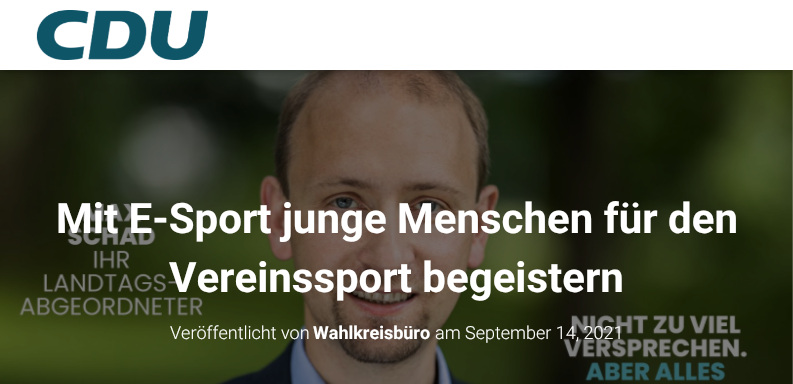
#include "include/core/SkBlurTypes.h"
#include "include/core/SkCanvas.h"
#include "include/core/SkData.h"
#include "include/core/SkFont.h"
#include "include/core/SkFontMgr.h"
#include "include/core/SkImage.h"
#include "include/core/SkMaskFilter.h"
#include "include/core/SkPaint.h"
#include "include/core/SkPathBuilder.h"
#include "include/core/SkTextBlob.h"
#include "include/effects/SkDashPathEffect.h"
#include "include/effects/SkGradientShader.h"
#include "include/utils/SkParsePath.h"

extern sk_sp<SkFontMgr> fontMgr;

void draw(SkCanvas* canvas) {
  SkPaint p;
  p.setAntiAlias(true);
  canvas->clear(SK_ColorWHITE);
  canvas->drawImageRect(SkImages::DeferredFromEncodedData(SkData::MakeFromFileName("images/2.png")), SkRect::MakeLTRB(0, 70, 793, 384), SkSamplingOptions());
  p.setColor(SkColorSetARGB(26, 0, 0, 0));
  p.setMaskFilter(SkMaskFilter::MakeBlur(kNormal_SkBlurStyle, 2.5f));
  canvas->drawRect(SkRect::MakeLTRB(2, 6, 791, 72), p);
  p.setMaskFilter(nullptr);
  p.setColor(SkColorSetARGB(31, 0, 0, 0));
  p.setMaskFilter(SkMaskFilter::MakeBlur(kNormal_SkBlurStyle, 5));
  canvas->drawRect(SkRect::MakeLTRB(0, 1, 793, 71), p);
  p.setMaskFilter(nullptr);
  p.setColor(SkColorSetARGB(107, 0, 0, 0));
  p.setMaskFilter(SkMaskFilter::MakeBlur(kNormal_SkBlurStyle, 5));
  canvas->drawRect(SkRect::MakeLTRB(6, 7, 787, 65), p);
  p.setMaskFilter(nullptr);
  p.setColor(SK_ColorWHITE);
  canvas->drawRect(SkRect::MakeLTRB(0, 0, 793, 70), p);
  canvas->drawImageRect(SkImages::DeferredFromEncodedData(SkData::MakeFromFileName("images/1.png")), SkRect::MakeLTRB(36, 10, 208, 60), SkSamplingOptions());
  SkFont font1(fontMgr->matchFamilyStyle("Roboto", SkFontStyle::Bold()), 42);
  font1.setSubpixel(true);
  canvas->drawString("Mit E-Sport junge Menschen für den", 56, 233, font1, p);
  canvas->drawString("Vereinssport begeistern", 169, 292, font1, p);
  SkFont font2(fontMgr->matchFamilyStyle("Roboto", SkFontStyle(300, SkFontStyle::kNormal_Width, SkFontStyle::kUpright_Slant)), 18);
  font2.setSubpixel(true);
  canvas->drawString("Veröffentlicht von", 170, 339, font2, p);
  SkFont font3(fontMgr->matchFamilyStyle("Roboto", SkFontStyle::Bold()), 18);
  font3.setSubpixel(true);
  canvas->drawString("Wahlkreisbüro", 313, 339, font3, p);
  canvas->drawString("am September 14, 2021", 435, 339, font2, p);
}
